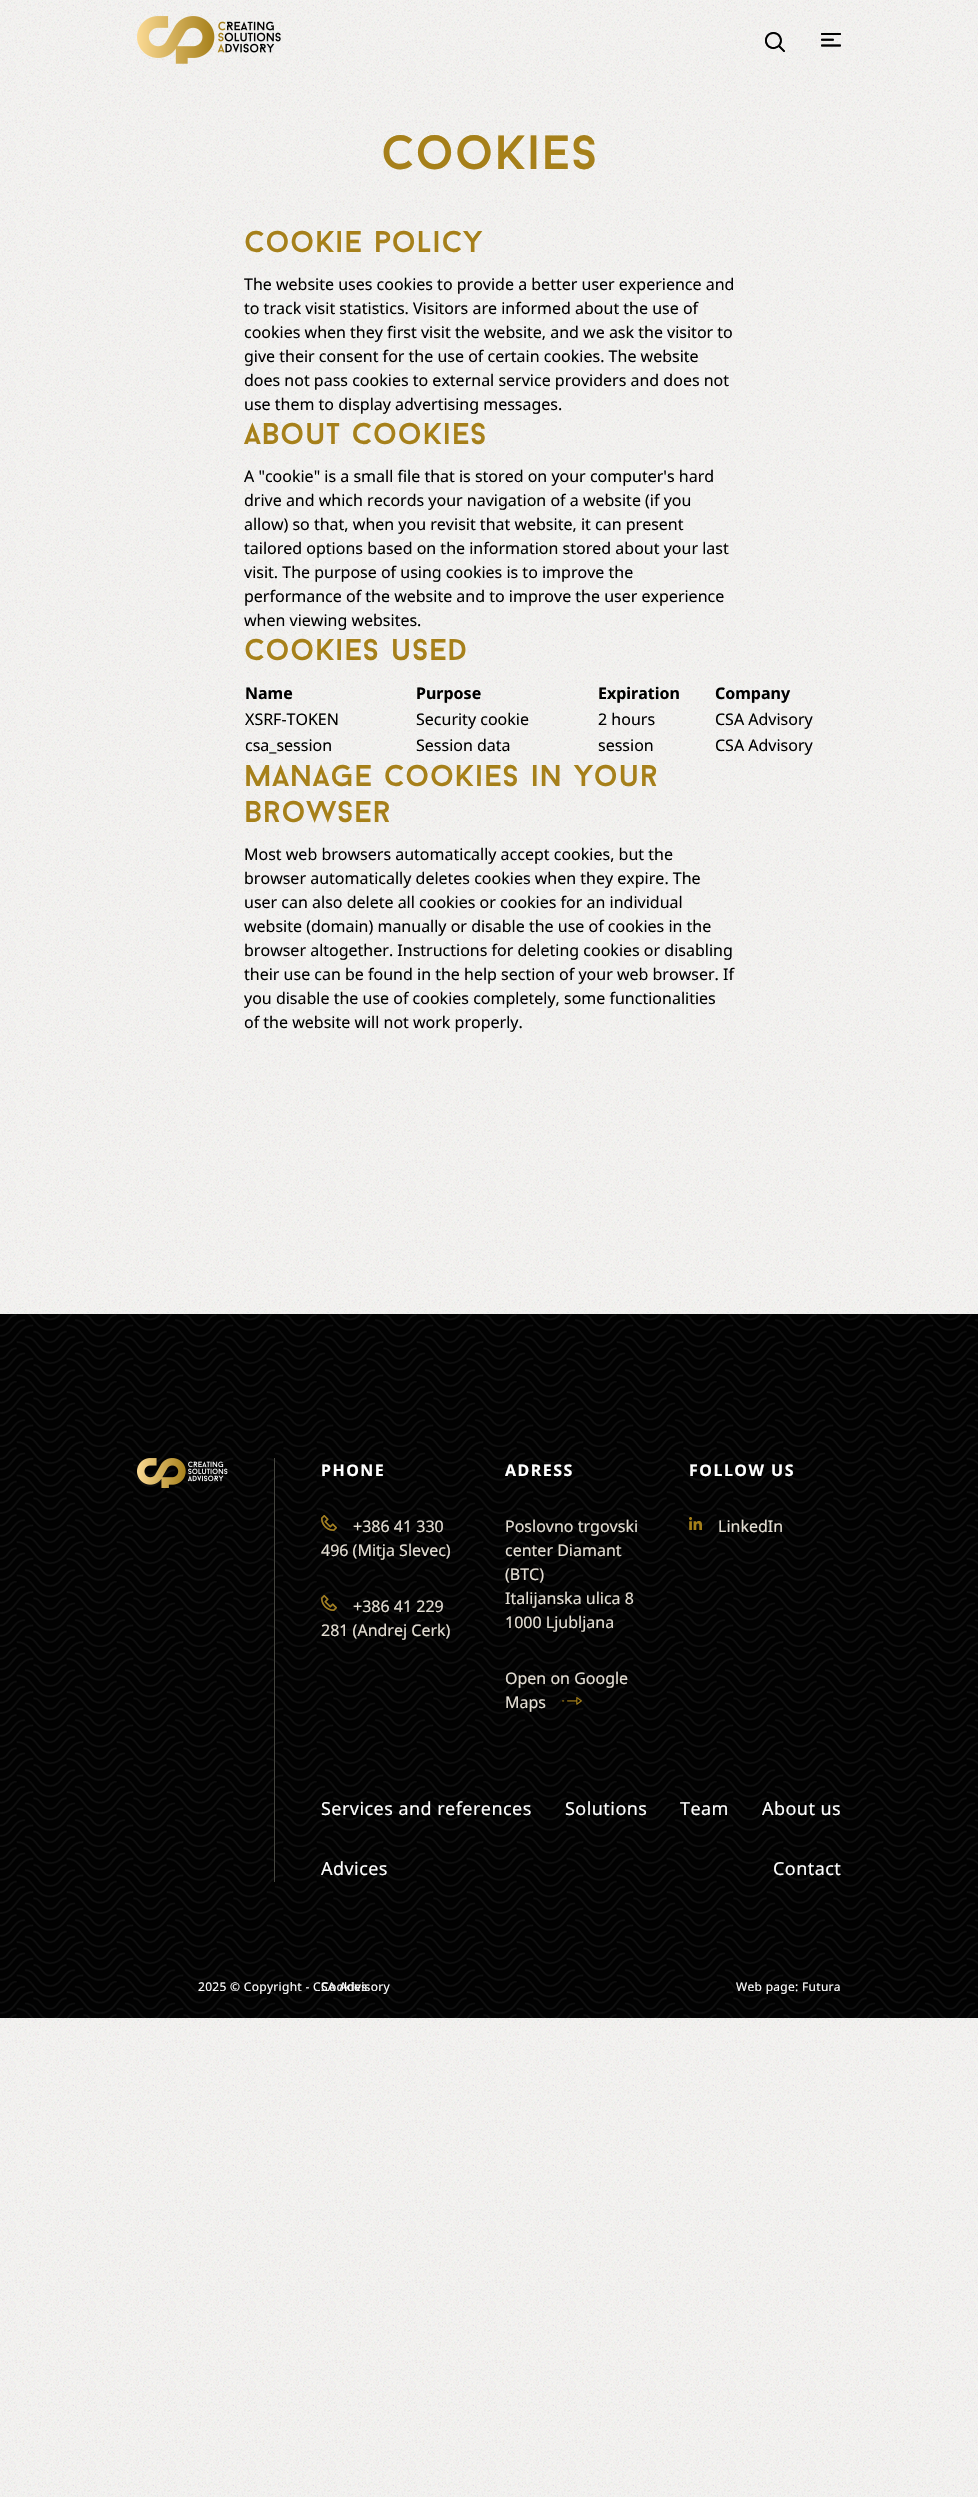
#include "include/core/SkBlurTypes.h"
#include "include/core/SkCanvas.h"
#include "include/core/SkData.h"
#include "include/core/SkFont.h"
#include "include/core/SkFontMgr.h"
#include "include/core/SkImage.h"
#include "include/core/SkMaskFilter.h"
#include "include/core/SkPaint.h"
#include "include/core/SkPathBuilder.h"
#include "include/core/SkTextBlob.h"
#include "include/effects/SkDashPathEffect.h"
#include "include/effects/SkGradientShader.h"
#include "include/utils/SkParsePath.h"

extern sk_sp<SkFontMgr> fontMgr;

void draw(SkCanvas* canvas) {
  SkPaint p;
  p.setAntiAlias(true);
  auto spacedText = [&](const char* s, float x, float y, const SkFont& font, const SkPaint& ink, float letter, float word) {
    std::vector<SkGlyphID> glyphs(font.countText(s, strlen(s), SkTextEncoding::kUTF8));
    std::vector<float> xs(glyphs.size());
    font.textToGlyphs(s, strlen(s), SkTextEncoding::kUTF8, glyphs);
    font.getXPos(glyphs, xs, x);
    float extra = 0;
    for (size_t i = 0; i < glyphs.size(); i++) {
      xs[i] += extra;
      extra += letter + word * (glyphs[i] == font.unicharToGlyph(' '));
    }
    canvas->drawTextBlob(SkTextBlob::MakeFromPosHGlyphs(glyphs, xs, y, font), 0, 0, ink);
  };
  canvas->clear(SK_ColorWHITE);
  canvas->drawImageRect(SkImages::DeferredFromEncodedData(SkData::MakeFromFileName("images/1.png")), SkRect::MakeLTRB(0, 0, 978, 2497), SkSamplingOptions());
  canvas->drawImageRect(SkImages::DeferredFromEncodedData(SkData::MakeFromFileName("images/2.png")), SkRect::MakeLTRB(137, 16, 281, 64), SkSamplingOptions());
  canvas->drawImageRect(SkImages::DeferredFromEncodedData(SkData::MakeFromFileName("images/3.png")), SkRect::MakeLTRB(765, 32, 785, 52), SkSamplingOptions());
  canvas->drawImageRect(SkImages::DeferredFromEncodedData(SkData::MakeFromFileName("images/4.png")), SkRect::MakeLTRB(821, 33, 841, 47), SkSamplingOptions());
  canvas->drawImageRect(SkImages::DeferredFromEncodedData(SkData::MakeFromFileName("images/5.png")), SkRect::MakeLTRB(0, 1314, 978, 2018), SkSamplingOptions());
  canvas->drawImageRect(SkImages::DeferredFromEncodedData(SkData::MakeFromFileName("images/6.png")), SkRect::MakeLTRB(137, 1458, 228, 1488), SkSamplingOptions());
  p.setColor(SkColorSetRGB(71, 71, 65));
  canvas->drawRect(SkRect::MakeLTRB(274, 1458, 275, 1882), p);
  canvas->drawImageRect(SkImages::DeferredFromEncodedData(SkData::MakeFromFileName("images/7.png")), SkRect::MakeLTRB(321, 1515, 337, 1531), SkSamplingOptions());
  canvas->drawImageRect(SkImages::DeferredFromEncodedData(SkData::MakeFromFileName("images/8.png")), SkRect::MakeLTRB(321, 1595, 337, 1611), SkSamplingOptions());
  canvas->drawImageRect(SkImages::DeferredFromEncodedData(SkData::MakeFromFileName("images/9.png")), SkRect::MakeLTRB(562, 1697, 582, 1705), SkSamplingOptions());
  canvas->drawImageRect(SkImages::DeferredFromEncodedData(SkData::MakeFromFileName("images/10.png")), SkRect::MakeLTRB(689, 1517, 702, 1530), SkSamplingOptions());
  SkFont font1(fontMgr->matchFamilyStyle("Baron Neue", SkFontStyle::Normal()), 48);
  font1.setSubpixel(true);
  p.setColor(SkColorSetRGB(166, 128, 26));
  spacedText("Cookies", 381, 169, font1, p, 1.25f, 0);
  SkFont font2(fontMgr->matchFamilyStyle("Baron Neue", SkFontStyle::Normal()), 30);
  font2.setSubpixel(true);
  spacedText("Cookie policy", 244, 252, font2, p, 0.75f, 0);
  SkFont font3(fontMgr->matchFamilyStyle("Noto Sans", SkFontStyle::Normal()), 16);
  font3.setSubpixel(true);
  p.setColor(SK_ColorBLACK);
  canvas->drawString("The website uses cookies to provide a better user experience and", 244, 290, font3, p);
  canvas->drawString("to track visit statistics. Visitors are informed about the use of", 244, 314, font3, p);
  canvas->drawString("cookies when they first visit the website, and we ask the visitor to", 244, 338, font3, p);
  canvas->drawString("give their consent for the use of certain cookies. The website", 244, 362, font3, p);
  canvas->drawString("does not pass cookies to external service providers and does not", 244, 386, font3, p);
  canvas->drawString("use them to display advertising messages.", 244, 410, font3, p);
  p.setColor(SkColorSetRGB(166, 128, 26));
  spacedText("About cookies", 244, 444, font2, p, 0.75f, 0);
  p.setColor(SK_ColorBLACK);
  canvas->drawString("A \"cookie\" is a small file that is stored on your computer's hard", 244, 482, font3, p);
  canvas->drawString("drive and which records your navigation of a website (if you", 244, 506, font3, p);
  canvas->drawString("allow) so that, when you revisit that website, it can present", 244, 530, font3, p);
  canvas->drawString("tailored options based on the information stored about your last", 244, 554, font3, p);
  canvas->drawString("visit. The purpose of using cookies is to improve the", 244, 578, font3, p);
  canvas->drawString("performance of the website and to improve the user experience", 244, 602, font3, p);
  canvas->drawString("when viewing websites.", 244, 626, font3, p);
  p.setColor(SkColorSetRGB(166, 128, 26));
  spacedText("Cookies used", 244, 660, font2, p, 0.75f, 0);
  SkFont font4(fontMgr->matchFamilyStyle("Noto Sans", SkFontStyle::Bold()), 16);
  font4.setSubpixel(true);
  p.setColor(SK_ColorBLACK);
  canvas->drawString("Name", 245, 699, font4, p);
  canvas->drawString("Purpose", 416, 699, font4, p);
  canvas->drawString("Expiration", 598, 699, font4, p);
  canvas->drawString("Company", 715, 699, font4, p);
  canvas->drawString("XSRF-TOKEN", 245, 725, font3, p);
  canvas->drawString("Security cookie", 416, 725, font3, p);
  canvas->drawString("2 hours", 598, 725, font3, p);
  canvas->drawString("CSA Advisory", 715, 725, font3, p);
  canvas->drawString("csa_session", 245, 751, font3, p);
  canvas->drawString("Session data", 416, 751, font3, p);
  canvas->drawString("session", 598, 751, font3, p);
  canvas->drawString("CSA Advisory", 715, 751, font3, p);
  p.setColor(SkColorSetRGB(166, 128, 26));
  spacedText("Manage cookies in your", 244, 786, font2, p, 0.75f, 0);
  spacedText("browser", 244, 822, font2, p, 0.75f, 0);
  p.setColor(SK_ColorBLACK);
  canvas->drawString("Most web browsers automatically accept cookies, but the", 244, 860, font3, p);
  canvas->drawString("browser automatically deletes cookies when they expire. The", 244, 884, font3, p);
  canvas->drawString("user can also delete all cookies or cookies for an individual", 244, 908, font3, p);
  canvas->drawString("website (domain) manually or disable the use of cookies in the", 244, 932, font3, p);
  canvas->drawString("browser altogether. Instructions for deleting cookies or disabling", 244, 956, font3, p);
  canvas->drawString("their use can be found in the help section of your web browser. If", 244, 980, font3, p);
  canvas->drawString("you disable the use of cookies completely, some functionalities", 244, 1004, font3, p);
  canvas->drawString("of the website will not work properly.", 244, 1028, font3, p);
  p.setColor(SK_ColorWHITE);
  spacedText("PHONE", 321, 1476, font4, p, 1.5f, 0);
  p.setColor(SkColorSetRGB(228, 222, 211));
  canvas->drawString("+386 41 330", 353, 1532, font3, p);
  canvas->drawString("496 (Mitja Slevec)", 321, 1556, font3, p);
  canvas->drawString("+386 41 229", 353, 1612, font3, p);
  canvas->drawString("281 (Andrej Cerk)", 321, 1636, font3, p);
  p.setColor(SK_ColorWHITE);
  spacedText("ADRESS", 505, 1476, font4, p, 1.5f, 0);
  p.setColor(SkColorSetRGB(228, 222, 211));
  canvas->drawString("Poslovno trgovski", 505, 1532, font3, p);
  canvas->drawString("center Diamant", 505, 1556, font3, p);
  canvas->drawString("(BTC)", 505, 1580, font3, p);
  canvas->drawString("Italijanska ulica 8", 505, 1604, font3, p);
  canvas->drawString("1000 Ljubljana", 505, 1628, font3, p);
  canvas->drawString("Open on Google", 505, 1684, font3, p);
  canvas->drawString("Maps", 505, 1708, font3, p);
  p.setColor(SK_ColorWHITE);
  spacedText("FOLLOW US", 689, 1476, font4, p, 1.5f, 0);
  p.setColor(SkColorSetRGB(228, 222, 211));
  canvas->drawString("LinkedIn", 718, 1532, font3, p);
  SkFont font5(fontMgr->matchFamilyStyle("Noto Sans", SkFontStyle::Normal()), 18);
  font5.setSubpixel(true);
  p.setColor(SK_ColorWHITE);
  spacedText("Services and references", 321, 1815, font5, p, 0.45f, 0);
  spacedText("Solutions", 565, 1815, font5, p, 0.45f, 0);
  spacedText("Team", 680, 1815, font5, p, 0.45f, 0);
  spacedText("About us", 762, 1815, font5, p, 0.45f, 0);
  spacedText("Advices", 321, 1875, font5, p, 0.45f, 0);
  spacedText("Contact", 773, 1875, font5, p, 0.45f, 0);
  SkFont font6(fontMgr->matchFamilyStyle("Noto Sans", SkFontStyle::Normal()), 12);
  font6.setSubpixel(true);
  spacedText("2025 © Copyright - CSA Advisory", 198, 1991, font6, p, 0.3f, 0);
  spacedText("Cookies", 321, 1991, font6, p, 0.3f, 0);
  spacedText("Web page: Futura", 736, 1991, font6, p, 0.3f, 0);
}
